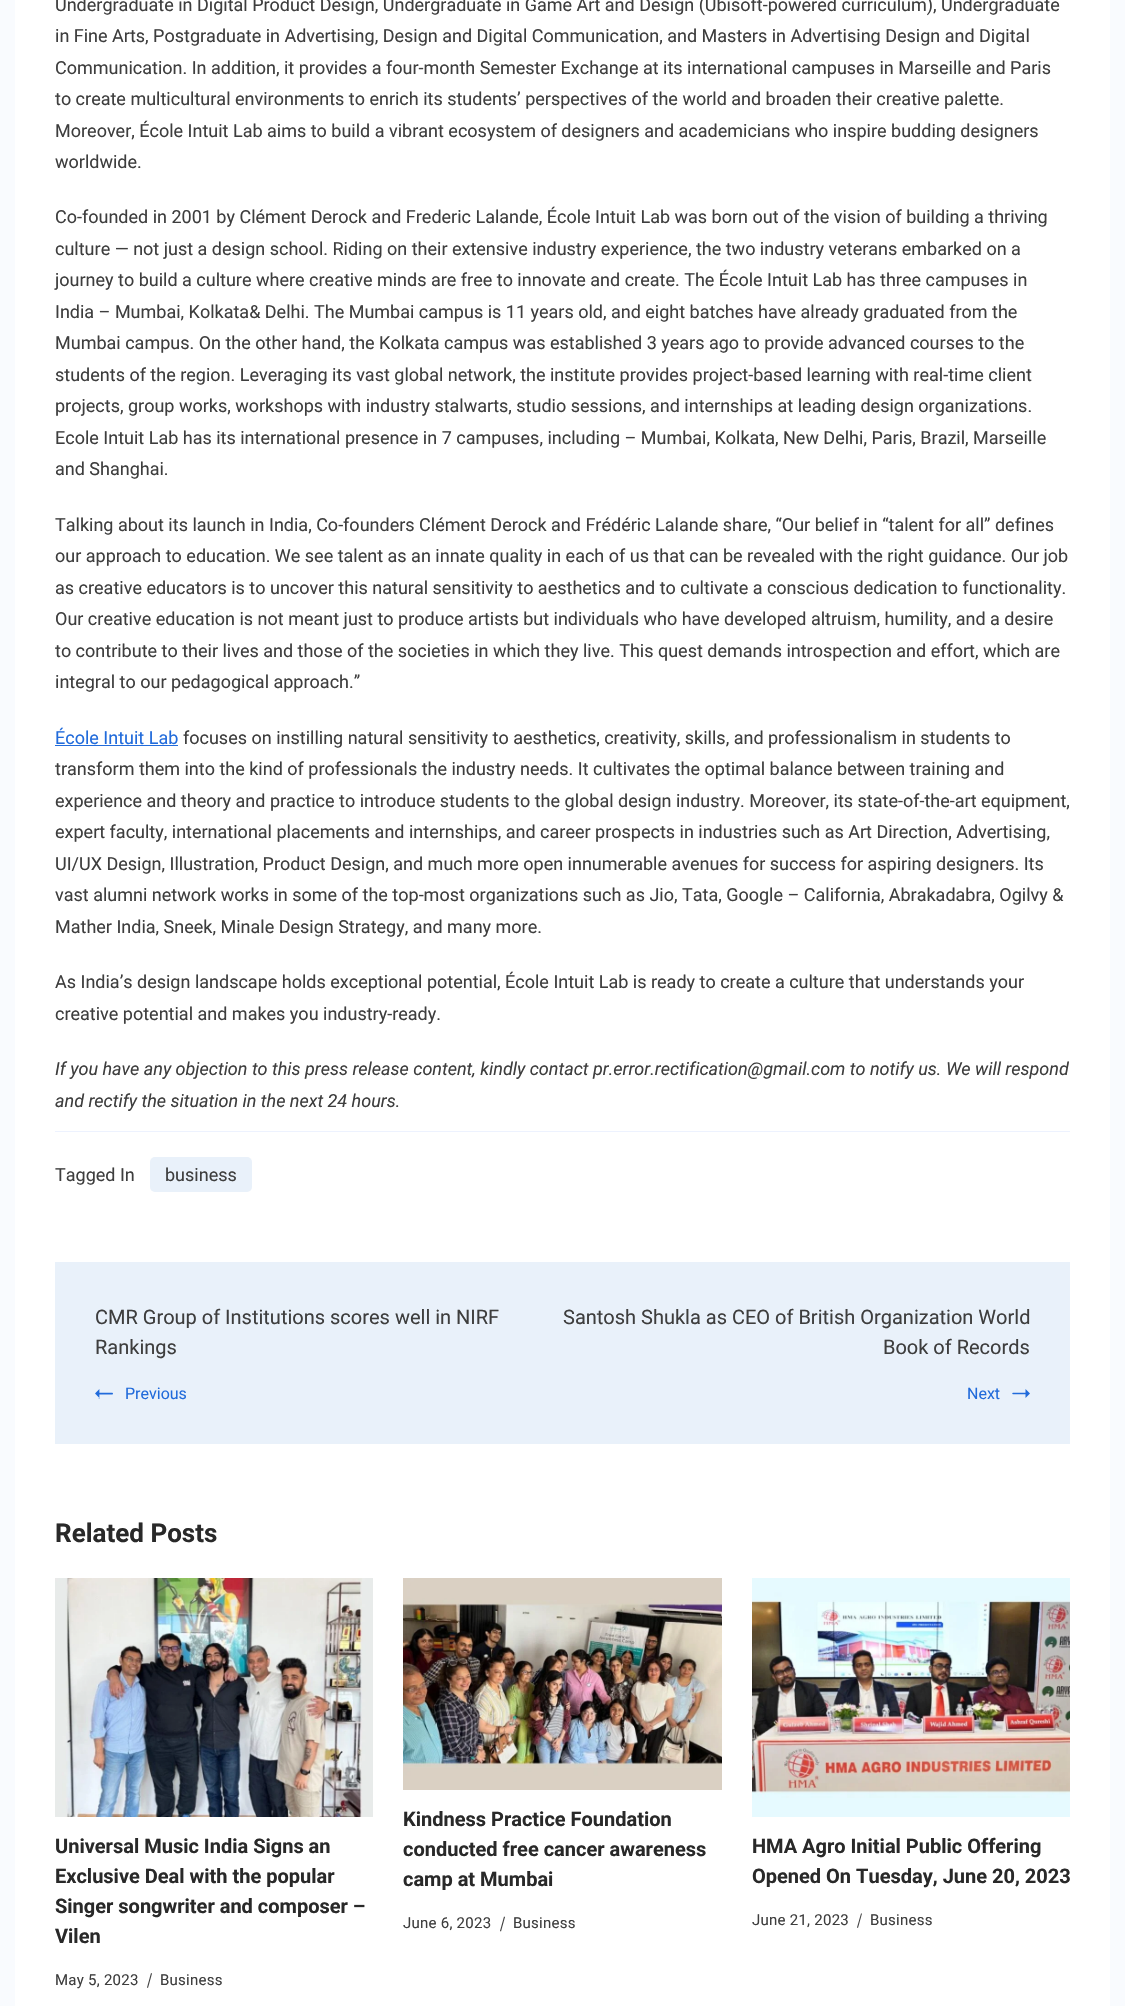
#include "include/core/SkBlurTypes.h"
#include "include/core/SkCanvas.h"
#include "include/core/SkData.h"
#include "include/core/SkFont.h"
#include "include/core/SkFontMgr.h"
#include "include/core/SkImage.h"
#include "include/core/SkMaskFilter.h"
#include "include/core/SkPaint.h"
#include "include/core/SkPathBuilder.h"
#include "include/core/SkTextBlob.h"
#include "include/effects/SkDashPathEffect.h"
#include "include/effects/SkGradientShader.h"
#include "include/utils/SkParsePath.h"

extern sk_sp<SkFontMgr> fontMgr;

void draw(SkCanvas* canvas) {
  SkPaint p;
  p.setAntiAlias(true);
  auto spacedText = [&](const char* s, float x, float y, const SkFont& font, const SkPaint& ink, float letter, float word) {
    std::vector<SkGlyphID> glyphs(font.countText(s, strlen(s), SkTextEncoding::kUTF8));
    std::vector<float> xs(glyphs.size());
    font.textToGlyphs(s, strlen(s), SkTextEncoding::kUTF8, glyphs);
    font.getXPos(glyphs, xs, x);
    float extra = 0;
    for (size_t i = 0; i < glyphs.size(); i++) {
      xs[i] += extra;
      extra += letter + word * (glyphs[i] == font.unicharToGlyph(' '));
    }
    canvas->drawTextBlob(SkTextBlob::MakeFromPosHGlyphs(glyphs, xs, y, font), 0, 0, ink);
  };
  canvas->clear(SkColorSetRGB(249, 251, 254));
  p.setColor(SK_ColorWHITE);
  canvas->drawRect(SkRect::MakeLTRB(15, 0, 1110, 2006), p);
  p.setColor(SkColorSetRGB(33, 107, 219));
  canvas->drawRect(SkRect::MakeLTRB(55, 745, 178, 746), p);
  p.setColor(SkColorSetRGB(237, 242, 254));
  canvas->drawRect(SkRect::MakeLTRB(55, 1131, 1070, 1132), p);
  p.setColor(SkColorSetRGB(233, 241, 250));
  canvas->drawRoundRect(SkRect::MakeLTRB(150, 1157, 252, 1192), 5, 5, p);
  canvas->drawRect(SkRect::MakeLTRB(55, 1262, 1070, 1444), p);
  canvas->drawImageRect(SkImages::DeferredFromEncodedData(SkData::MakeFromFileName("images/1.png")), SkRect::MakeLTRB(95, 1389, 113, 1399), SkSamplingOptions());
  p.setColor(SkColorSetRGB(33, 107, 219));
  canvas->drawPath(SkPathBuilder().moveTo(1025.5f, 1398).lineTo(1030, 1393.5f).lineTo(1025.5f, 1389).close().detach(), p);
  p.setStyle(SkPaint::kStroke_Style);
  p.setStrokeWidth(1.5f);
  p.setStrokeCap(SkPaint::kRound_Cap);
  canvas->drawPath(SkPathBuilder().moveTo(1013, 1393.5f).lineTo(1027.5f, 1393.5f).detach(), p);
  canvas->drawImageRect(SkImages::DeferredFromEncodedData(SkData::MakeFromFileName("images/2.png")), SkRect::MakeLTRB(55, 1578, 373, 1817), SkSamplingOptions());
  p.setStyle(SkPaint::kFill_Style);
  p.setColor(SkColorSetRGB(62, 62, 62));
  canvas->drawPath(SkPathBuilder().moveTo(151, 1973).lineTo(152, 1973.5f).lineTo(148, 1988).lineTo(147, 1987.5f).close().detach(), p);
  canvas->drawImageRect(SkImages::DeferredFromEncodedData(SkData::MakeFromFileName("images/3.png")), SkRect::MakeLTRB(403, 1578, 722, 1790), SkSamplingOptions());
  canvas->drawPath(SkPathBuilder().moveTo(504, 1916.5f).lineTo(505, 1917).lineTo(501, 1931.5f).lineTo(500, 1931).close().detach(), p);
  canvas->drawImageRect(SkImages::DeferredFromEncodedData(SkData::MakeFromFileName("images/4.png")), SkRect::MakeLTRB(752, 1578, 1070, 1817), SkSamplingOptions());
  canvas->drawPath(SkPathBuilder().moveTo(861, 1913.5f).lineTo(862, 1913.5f).lineTo(858, 1928).lineTo(857, 1927.5f).close().detach(), p);
  SkFont font1(fontMgr->matchFamilyStyle("Roboto", SkFontStyle::Normal()), 18);
  font1.setSubpixel(true);
  canvas->drawString("Undergraduate in Digital Product Design, Undergraduate in Game Art and Design (Ubisoft-powered curriculum), Undergraduate", 55, 11, font1, p);
  canvas->drawString("in Fine Arts, Postgraduate in Advertising, Design and Digital Communication, and Masters in Advertising Design and Digital", 55, 42, font1, p);
  canvas->drawString("Communication. In addition, it provides a four-month Semester Exchange at its international campuses in Marseille and Paris", 55, 74, font1, p);
  canvas->drawString("to create multicultural environments to enrich its students’ perspectives of the world and broaden their creative palette.", 55, 105, font1, p);
  canvas->drawString("Moreover, École Intuit Lab aims to build a vibrant ecosystem of designers and academicians who inspire budding designers", 55, 137, font1, p);
  canvas->drawString("worldwide.", 55, 168, font1, p);
  canvas->drawString("Co-founded in 2001 by Clément Derock and Frederic Lalande, École Intuit Lab was born out of the vision of building a thriving", 55, 223, font1, p);
  canvas->drawString("culture — not just a design school. Riding on their extensive industry experience, the two industry veterans embarked on a", 55, 255, font1, p);
  canvas->drawString("journey to build a culture where creative minds are free to innovate and create. The École Intuit Lab has three campuses in", 55, 286, font1, p);
  canvas->drawString("India – Mumbai, Kolkata& Delhi. The Mumbai campus is 11 years old, and eight batches have already graduated from the", 55, 318, font1, p);
  canvas->drawString("Mumbai campus. On the other hand, the Kolkata campus was established 3 years ago to provide advanced courses to the", 55, 349, font1, p);
  canvas->drawString("students of the region. Leveraging its vast global network, the institute provides project-based learning with real-time client", 55, 381, font1, p);
  canvas->drawString("projects, group works, workshops with industry stalwarts, studio sessions, and internships at leading design organizations.", 55, 412, font1, p);
  canvas->drawString("Ecole Intuit Lab has its international presence in 7 campuses, including – Mumbai, Kolkata, New Delhi, Paris, Brazil, Marseille", 55, 444, font1, p);
  canvas->drawString("and Shanghai.", 55, 475, font1, p);
  canvas->drawString("Talking about its launch in India, Co-founders Clément Derock and Frédéric Lalande share, “Our belief in “talent for all” defines", 55, 531, font1, p);
  canvas->drawString("our approach to education. We see talent as an innate quality in each of us that can be revealed with the right guidance. Our job", 55, 562, font1, p);
  canvas->drawString("as creative educators is to uncover this natural sensitivity to aesthetics and to cultivate a conscious dedication to functionality.", 55, 594, font1, p);
  canvas->drawString("Our creative education is not meant just to produce artists but individuals who have developed altruism, humility, and a desire", 55, 625, font1, p);
  canvas->drawString("to contribute to their lives and those of the societies in which they live. This quest demands introspection and effort, which are", 55, 657, font1, p);
  canvas->drawString("integral to our pedagogical approach.”", 55, 688, font1, p);
  p.setColor(SkColorSetRGB(33, 107, 219));
  canvas->drawString("École Intuit Lab", 55, 744, font1, p);
  p.setColor(SkColorSetRGB(62, 62, 62));
  canvas->drawString("focuses on instilling natural sensitivity to aesthetics, creativity, skills, and professionalism in students to", 183, 744, font1, p);
  canvas->drawString("transform them into the kind of professionals the industry needs. It cultivates the optimal balance between training and", 55, 775, font1, p);
  canvas->drawString("experience and theory and practice to introduce students to the global design industry. Moreover, its state-of-the-art equipment,", 55, 807, font1, p);
  canvas->drawString("expert faculty, international placements and internships, and career prospects in industries such as Art Direction, Advertising,", 55, 838, font1, p);
  canvas->drawString("UI/UX Design, Illustration, Product Design, and much more open innumerable avenues for success for aspiring designers. Its", 55, 870, font1, p);
  canvas->drawString("vast alumni network works in some of the top-most organizations such as Jio, Tata, Google – California, Abrakadabra, Ogilvy &", 55, 901, font1, p);
  canvas->drawString("Mather India, Sneek, Minale Design Strategy, and many more.", 55, 933, font1, p);
  canvas->drawString("As India’s design landscape holds exceptional potential, École Intuit Lab is ready to create a culture that understands your", 55, 988, font1, p);
  canvas->drawString("creative potential and makes you industry-ready.", 55, 1020, font1, p);
  SkFont font2(fontMgr->matchFamilyStyle("Roboto", SkFontStyle::Italic()), 18);
  font2.setSubpixel(true);
  canvas->drawString("If you have any objection to this press release content, kindly contact pr.error.rectification@gmail.com to notify us. We will respond", 55, 1075, font2, p);
  canvas->drawString("and rectify the situation in the next 24 hours.", 55, 1107, font2, p);
  canvas->drawString("Tagged In", 55, 1181, font1, p);
  canvas->drawString("business", 165, 1181, font1, p);
  SkFont font3(fontMgr->matchFamilyStyle("Roboto", SkFontStyle::Normal()), 20);
  font3.setSubpixel(true);
  canvas->drawString("CMR Group of Institutions scores well in NIRF", 95, 1324, font3, p);
  canvas->drawString("Rankings", 95, 1354, font3, p);
  SkFont font4(fontMgr->matchFamilyStyle("Roboto", SkFontStyle::Normal()), 16);
  font4.setSubpixel(true);
  p.setColor(SkColorSetRGB(33, 107, 219));
  canvas->drawString("Previous", 125, 1399, font4, p);
  p.setColor(SkColorSetRGB(62, 62, 62));
  canvas->drawString("Santosh Shukla as CEO of British Organization World", 563, 1324, font3, p);
  canvas->drawString("Book of Records", 883, 1354, font3, p);
  p.setColor(SkColorSetRGB(33, 107, 219));
  canvas->drawString("Next", 967, 1399, font4, p);
  SkFont font5(fontMgr->matchFamilyStyle("Roboto", SkFontStyle::Bold()), 26);
  font5.setSubpixel(true);
  p.setColor(SkColorSetRGB(41, 41, 41));
  canvas->drawString("Related Posts", 55, 1542, font5, p);
  SkFont font6(fontMgr->matchFamilyStyle("Roboto", SkFontStyle::Bold()), 20);
  font6.setSubpixel(true);
  canvas->drawString("Universal Music India Signs an", 55, 1853, font6, p);
  canvas->drawString("Exclusive Deal with the popular", 55, 1883, font6, p);
  canvas->drawString("Singer songwriter and composer –", 55, 1913, font6, p);
  canvas->drawString("Vilen", 55, 1943, font6, p);
  SkFont font7(fontMgr->matchFamilyStyle("Roboto", SkFontStyle::Normal()), 15);
  font7.setSubpixel(true);
  p.setColor(SkColorSetRGB(62, 62, 62));
  spacedText("May 5, 2023", 55, 1985, font7, p, 0.25f, 0);
  spacedText("Business", 160, 1985, font7, p, 0.25f, 0);
  p.setColor(SkColorSetRGB(41, 41, 41));
  canvas->drawString("Kindness Practice Foundation", 403, 1826, font6, p);
  canvas->drawString("conducted free cancer awareness", 403, 1856, font6, p);
  canvas->drawString("camp at Mumbai", 403, 1886, font6, p);
  p.setColor(SkColorSetRGB(62, 62, 62));
  spacedText("June 6, 2023", 403, 1928, font7, p, 0.25f, 0);
  spacedText("Business", 513, 1928, font7, p, 0.25f, 0);
  p.setColor(SkColorSetRGB(41, 41, 41));
  canvas->drawString("HMA Agro Initial Public Offering", 752, 1853, font6, p);
  canvas->drawString("Opened On Tuesday, June 20, 2023", 752, 1883, font6, p);
  p.setColor(SkColorSetRGB(62, 62, 62));
  spacedText("June 21, 2023", 752, 1925, font7, p, 0.25f, 0);
  spacedText("Business", 870, 1925, font7, p, 0.25f, 0);
}
